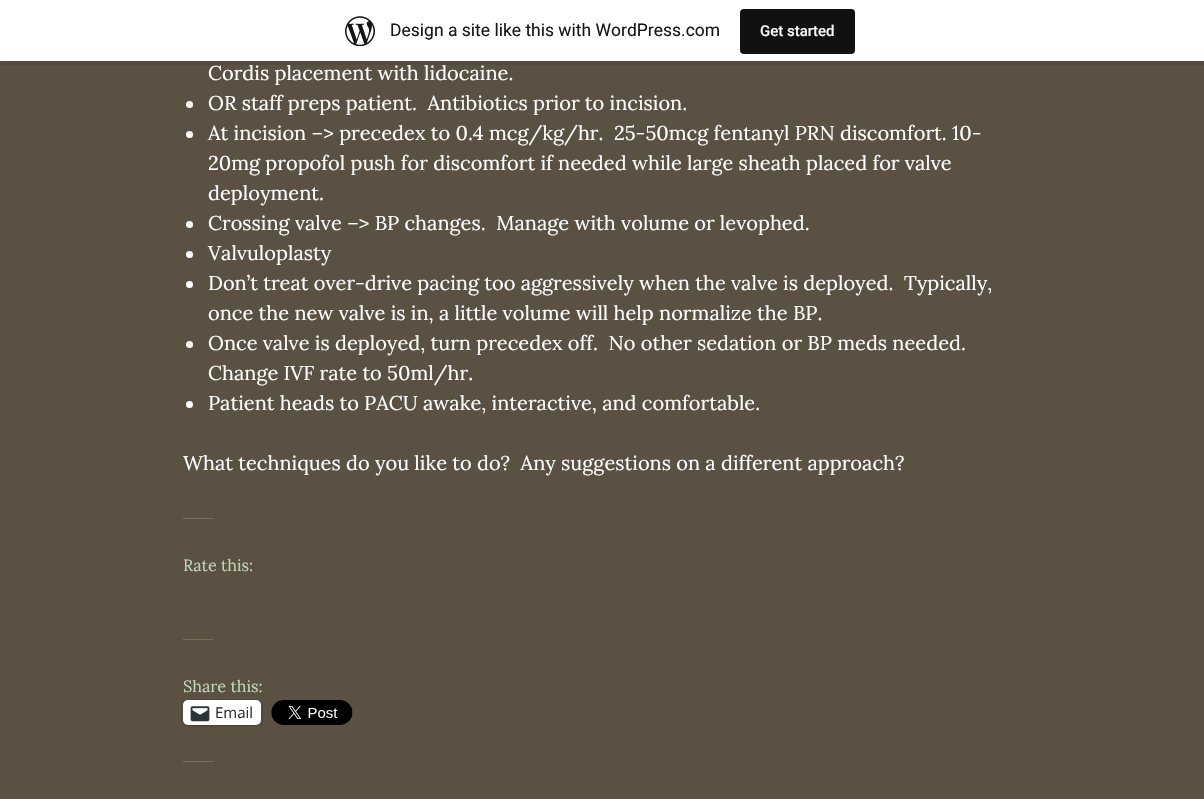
#include "include/core/SkBlurTypes.h"
#include "include/core/SkCanvas.h"
#include "include/core/SkData.h"
#include "include/core/SkFont.h"
#include "include/core/SkFontMgr.h"
#include "include/core/SkImage.h"
#include "include/core/SkMaskFilter.h"
#include "include/core/SkPaint.h"
#include "include/core/SkPathBuilder.h"
#include "include/core/SkTextBlob.h"
#include "include/effects/SkDashPathEffect.h"
#include "include/effects/SkGradientShader.h"
#include "include/utils/SkParsePath.h"

extern sk_sp<SkFontMgr> fontMgr;

void draw(SkCanvas* canvas) {
  SkPaint p;
  p.setAntiAlias(true);
  canvas->clear(SkColorSetRGB(90, 81, 67));
  p.setColor(SkColorSetARGB(20, 0, 0, 0));
  canvas->drawPath(SkPathBuilder().moveTo(1, 61).lineTo(1, 65).lineTo(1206, 65).lineTo(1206, 4).lineTo(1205, 4).lineTo(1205, 61).close().detach(), p);
  p.setColor(SK_ColorWHITE);
  canvas->drawRect(SkRect::MakeLTRB(0, 0, 1204, 61), p);
  canvas->drawImageRect(SkImages::DeferredFromEncodedData(SkData::MakeFromFileName("images/1.png")), SkRect::MakeLTRB(345, 16, 375, 46), SkSamplingOptions());
  p.setColor(SkColorSetRGB(17, 17, 17));
  canvas->drawRoundRect(SkRect::MakeLTRB(740, 9, 855, 54), 4, 4, p);
  p.setColor(SK_ColorWHITE);
  canvas->drawCircle(189.5f, 104.5f, 3.5f, p);
  canvas->drawCircle(189.5f, 134.5f, 3.5f, p);
  canvas->drawCircle(189.5f, 224.5f, 3.5f, p);
  canvas->drawCircle(189.5f, 254.5f, 3.5f, p);
  canvas->drawCircle(189.5f, 284.5f, 3.5f, p);
  canvas->drawCircle(189.5f, 344.5f, 3.5f, p);
  canvas->drawCircle(189.5f, 404.5f, 3.5f, p);
  p.setColor(SkColorSetRGB(120, 110, 88));
  canvas->drawRect(SkRect::MakeLTRB(183, 518, 213, 519), p);
  canvas->drawRect(SkRect::MakeLTRB(183, 639, 213, 640), p);
  p.setStyle(SkPaint::kStroke_Style);
  p.setStrokeWidth(1);
  p.setColor(SkColorSetRGB(79, 71, 59));
  canvas->drawRoundRect(SkRect::MakeLTRB(181.5f, 699.5f, 262.5f, 725.5f), 5.5f, 5.5f, p);
  p.setStyle(SkPaint::kFill_Style);
  p.setColor(SkColorSetARGB(31, 0, 0, 0));
  p.setMaskFilter(SkMaskFilter::MakeBlur(kNormal_SkBlurStyle, 1));
  canvas->drawRoundRect(SkRect::MakeLTRB(183, 701, 261, 726), 5, 5, p);
  p.setMaskFilter(nullptr);
  p.setColor(SK_ColorWHITE);
  canvas->drawRoundRect(SkRect::MakeLTRB(183, 700, 261, 725), 5, 5, p);
  canvas->drawImageRect(SkImages::DeferredFromEncodedData(SkData::MakeFromFileName("images/2.png")), SkRect::MakeLTRB(190, 706, 210, 722), SkSamplingOptions());
  canvas->drawImageRect(SkImages::DeferredFromEncodedData(SkData::MakeFromFileName("images/3.png")), SkRect::MakeLTRB(271, 700, 353, 725), SkSamplingOptions());
  p.setColor(SkColorSetRGB(120, 110, 88));
  canvas->drawRect(SkRect::MakeLTRB(183, 761, 213, 762), p);
  SkFont font1(fontMgr->matchFamilyStyle("Roboto", SkFontStyle::Normal()), 17.5f);
  font1.setSubpixel(true);
  p.setColor(SkColorSetRGB(23, 23, 23));
  canvas->drawString("Design a site like this with WordPress.com", 390, 36, font1, p);
  SkFont font2(fontMgr->matchFamilyStyle("Roboto", SkFontStyle(500, SkFontStyle::kNormal_Width, SkFontStyle::kUpright_Slant)), 15);
  font2.setSubpixel(true);
  p.setColor(SkColorSetRGB(246, 247, 247));
  canvas->drawString("Get started", 760, 36, font2, p);
  SkFont font3(fontMgr->matchFamilyStyle("Lora", SkFontStyle::Normal()), 20);
  font3.setSubpixel(true);
  p.setColor(SK_ColorWHITE);
  canvas->drawString("Cordis placement with lidocaine.", 208, 80, font3, p);
  canvas->drawString("OR staff preps patient.  Antibiotics prior to incision.", 208, 110, font3, p);
  canvas->drawString("At incision –> precedex to 0.4 mcg/kg/hr.  25-50mcg fentanyl PRN discomfort. 10-", 208, 140, font3, p);
  canvas->drawString("20mg propofol push for discomfort if needed while large sheath placed for valve", 208, 170, font3, p);
  canvas->drawString("deployment.", 208, 200, font3, p);
  canvas->drawString("Crossing valve –> BP changes.  Manage with volume or levophed.", 208, 230, font3, p);
  canvas->drawString("Valvuloplasty", 208, 260, font3, p);
  canvas->drawString("Don’t treat over-drive pacing too aggressively when the valve is deployed.  Typically,", 208, 290, font3, p);
  canvas->drawString("once the new valve is in, a little volume will help normalize the BP.", 208, 320, font3, p);
  canvas->drawString("Once valve is deployed, turn precedex off.  No other sedation or BP meds needed.", 208, 350, font3, p);
  canvas->drawString("Change IVF rate to 50ml/hr.", 208, 380, font3, p);
  canvas->drawString("Patient heads to PACU awake, interactive, and comfortable.", 208, 410, font3, p);
  canvas->drawString("What techniques do you like to do?  Any suggestions on a different approach?", 183, 470, font3, p);
  SkFont font4(fontMgr->matchFamilyStyle("Lora", SkFontStyle::Normal()), 16.25f);
  font4.setSubpixel(true);
  p.setColor(SkColorSetRGB(190, 216, 181));
  canvas->drawString("Rate this:", 183, 571, font4, p);
  canvas->drawString("Share this:", 183, 692, font4, p);
  SkFont font5(fontMgr->matchFamilyStyle("Open Sans", SkFontStyle::Normal()), 15);
  font5.setSubpixel(true);
  p.setColor(SkColorSetRGB(44, 51, 56));
  canvas->drawString("Email", 215, 718, font5, p);
}
